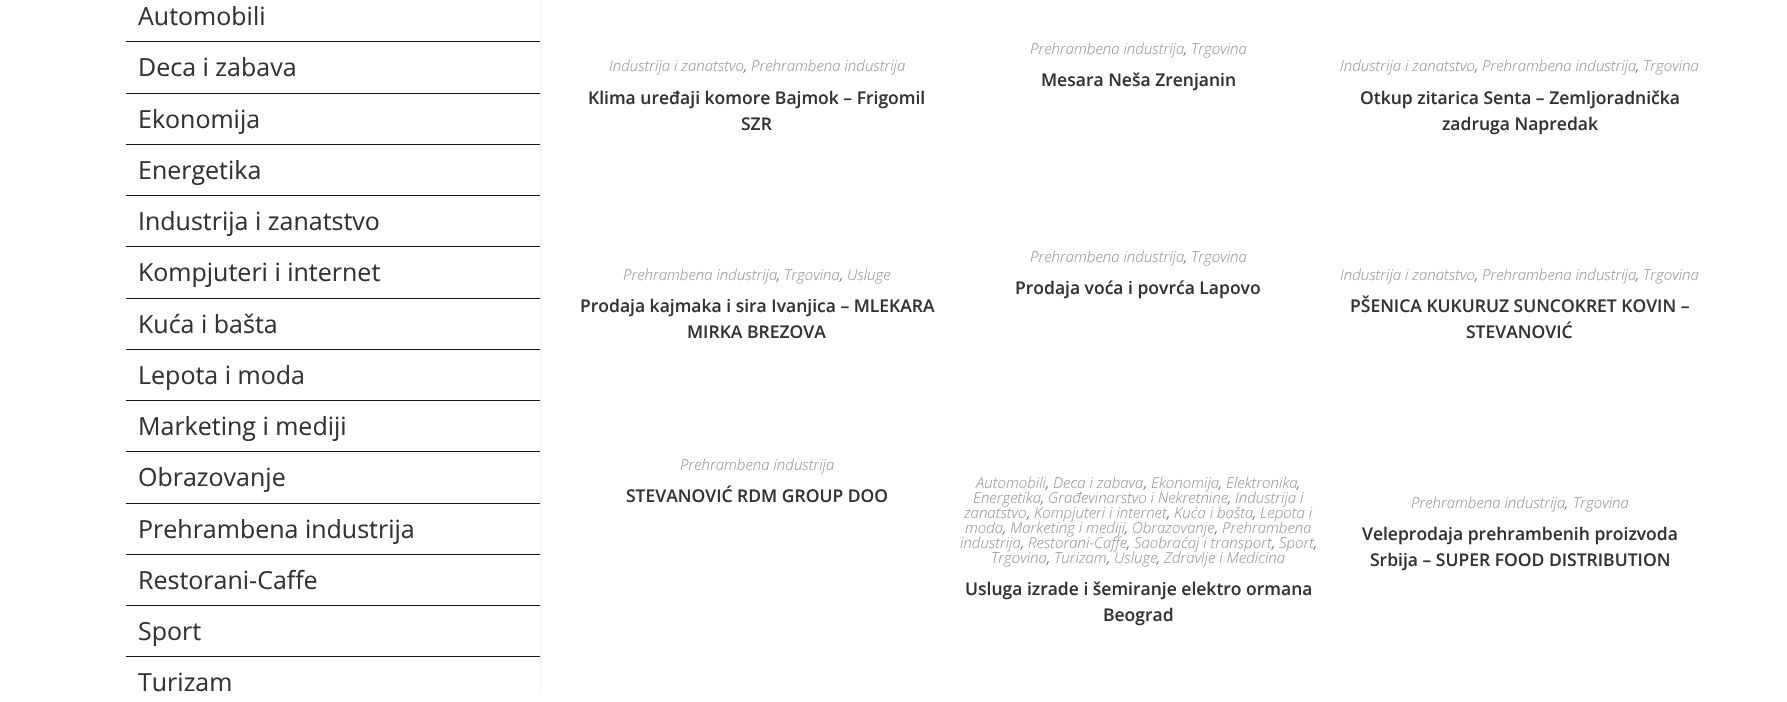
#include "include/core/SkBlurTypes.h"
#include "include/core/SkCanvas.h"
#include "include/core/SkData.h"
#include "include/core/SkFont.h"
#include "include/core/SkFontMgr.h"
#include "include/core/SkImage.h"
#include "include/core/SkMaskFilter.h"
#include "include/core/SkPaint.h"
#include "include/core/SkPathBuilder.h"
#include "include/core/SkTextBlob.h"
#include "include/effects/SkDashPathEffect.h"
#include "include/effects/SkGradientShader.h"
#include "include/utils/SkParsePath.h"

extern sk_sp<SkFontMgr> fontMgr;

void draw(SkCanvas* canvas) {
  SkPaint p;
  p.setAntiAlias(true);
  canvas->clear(SK_ColorWHITE);
  p.setColor(SkColorSetRGB(20, 23, 28));
  canvas->drawRect(SkRect::MakeLTRB(126, 41, 540, 42), p);
  canvas->drawRect(SkRect::MakeLTRB(126, 93, 540, 94), p);
  canvas->drawRect(SkRect::MakeLTRB(126, 144, 540, 145), p);
  canvas->drawRect(SkRect::MakeLTRB(126, 195, 540, 196), p);
  canvas->drawRect(SkRect::MakeLTRB(126, 246, 540, 247), p);
  canvas->drawRect(SkRect::MakeLTRB(126, 298, 540, 299), p);
  canvas->drawRect(SkRect::MakeLTRB(126, 349, 540, 350), p);
  canvas->drawRect(SkRect::MakeLTRB(126, 400, 540, 401), p);
  canvas->drawRect(SkRect::MakeLTRB(126, 451, 540, 452), p);
  canvas->drawRect(SkRect::MakeLTRB(126, 503, 540, 504), p);
  canvas->drawRect(SkRect::MakeLTRB(126, 554, 540, 555), p);
  canvas->drawRect(SkRect::MakeLTRB(126, 605, 540, 606), p);
  canvas->drawRect(SkRect::MakeLTRB(126, 656, 540, 657), p);
  p.setColor(SkColorSetRGB(241, 241, 241));
  canvas->drawRect(SkRect::MakeLTRB(540, 0, 541, 694), p);
  SkFont font1(fontMgr->matchFamilyStyle("Open Sans", SkFontStyle::Normal()), 25);
  font1.setSubpixel(true);
  p.setColor(SkColorSetRGB(51, 51, 51));
  canvas->drawString("Automobili", 138, 25, font1, p);
  canvas->drawString("Deca i zabava", 138, 76, font1, p);
  canvas->drawString("Ekonomija", 138, 128, font1, p);
  canvas->drawString("Energetika", 138, 179, font1, p);
  canvas->drawString("Industrija i zanatstvo", 138, 230, font1, p);
  canvas->drawString("Kompjuteri i internet", 138, 281, font1, p);
  canvas->drawString("Kuća i bašta", 138, 333, font1, p);
  canvas->drawString("Lepota i moda", 138, 384, font1, p);
  canvas->drawString("Marketing i mediji", 138, 435, font1, p);
  canvas->drawString("Obrazovanje", 138, 486, font1, p);
  canvas->drawString("Prehrambena industrija", 138, 538, font1, p);
  canvas->drawString("Restorani-Caffe", 138, 589, font1, p);
  canvas->drawString("Sport", 138, 640, font1, p);
  canvas->drawString("Turizam", 138, 691, font1, p);
  SkFont font2(fontMgr->matchFamilyStyle("Open Sans", SkFontStyle(300, SkFontStyle::kNormal_Width, SkFontStyle::kItalic_Slant)), 15);
  font2.setSubpixel(true);
  p.setColor(SkColorSetRGB(153, 153, 153));
  canvas->drawString("Industrija i zanatstvo", 609, 71, font2, p);
  p.setColor(SkColorSetRGB(74, 74, 74));
  canvas->drawString(",", 744, 71, font2, p);
  p.setColor(SkColorSetRGB(153, 153, 153));
  canvas->drawString("Prehrambena industrija", 751, 71, font2, p);
  SkFont font3(fontMgr->matchFamilyStyle("Open Sans", SkFontStyle(600, SkFontStyle::kNormal_Width, SkFontStyle::kUpright_Slant)), 17.5f);
  font3.setSubpixel(true);
  p.setColor(SkColorSetRGB(51, 51, 51));
  canvas->drawString("Klima uređaji komore Bajmok – Frigomil", 588, 104, font3, p);
  canvas->drawString("SZR", 741, 130, font3, p);
  p.setColor(SkColorSetRGB(153, 153, 153));
  canvas->drawString("Prehrambena industrija", 1030, 54, font2, p);
  p.setColor(SkColorSetRGB(74, 74, 74));
  canvas->drawString(",", 1184, 54, font2, p);
  p.setColor(SkColorSetRGB(153, 153, 153));
  canvas->drawString("Trgovina", 1191, 54, font2, p);
  p.setColor(SkColorSetRGB(51, 51, 51));
  canvas->drawString("Mesara Neša Zrenjanin", 1041, 86, font3, p);
  p.setColor(SkColorSetRGB(153, 153, 153));
  canvas->drawString("Industrija i zanatstvo", 1340, 71, font2, p);
  p.setColor(SkColorSetRGB(74, 74, 74));
  canvas->drawString(",", 1475, 71, font2, p);
  p.setColor(SkColorSetRGB(153, 153, 153));
  canvas->drawString("Prehrambena industrija", 1482, 71, font2, p);
  p.setColor(SkColorSetRGB(74, 74, 74));
  canvas->drawString(",", 1636, 71, font2, p);
  p.setColor(SkColorSetRGB(153, 153, 153));
  canvas->drawString("Trgovina", 1643, 71, font2, p);
  p.setColor(SkColorSetRGB(51, 51, 51));
  canvas->drawString("Otkup zitarica Senta – Zemljoradnička", 1360, 104, font3, p);
  canvas->drawString("zadruga Napredak", 1442, 130, font3, p);
  p.setColor(SkColorSetRGB(153, 153, 153));
  canvas->drawString("Prehrambena industrija", 623, 280, font2, p);
  p.setColor(SkColorSetRGB(74, 74, 74));
  canvas->drawString(",", 777, 280, font2, p);
  p.setColor(SkColorSetRGB(153, 153, 153));
  canvas->drawString("Trgovina", 784, 280, font2, p);
  p.setColor(SkColorSetRGB(74, 74, 74));
  canvas->drawString(",", 840, 280, font2, p);
  p.setColor(SkColorSetRGB(153, 153, 153));
  canvas->drawString("Usluge", 847, 280, font2, p);
  p.setColor(SkColorSetRGB(51, 51, 51));
  canvas->drawString("Prodaja kajmaka i sira Ivanjica – MLEKARA", 580, 312, font3, p);
  canvas->drawString("MIRKA BREZOVA", 687, 338, font3, p);
  p.setColor(SkColorSetRGB(153, 153, 153));
  canvas->drawString("Prehrambena industrija", 1030, 262, font2, p);
  p.setColor(SkColorSetRGB(74, 74, 74));
  canvas->drawString(",", 1184, 262, font2, p);
  p.setColor(SkColorSetRGB(153, 153, 153));
  canvas->drawString("Trgovina", 1191, 262, font2, p);
  p.setColor(SkColorSetRGB(51, 51, 51));
  canvas->drawString("Prodaja voća i povrća Lapovo", 1015, 294, font3, p);
  p.setColor(SkColorSetRGB(153, 153, 153));
  canvas->drawString("Industrija i zanatstvo", 1340, 280, font2, p);
  p.setColor(SkColorSetRGB(74, 74, 74));
  canvas->drawString(",", 1475, 280, font2, p);
  p.setColor(SkColorSetRGB(153, 153, 153));
  canvas->drawString("Prehrambena industrija", 1482, 280, font2, p);
  p.setColor(SkColorSetRGB(74, 74, 74));
  canvas->drawString(",", 1636, 280, font2, p);
  p.setColor(SkColorSetRGB(153, 153, 153));
  canvas->drawString("Trgovina", 1643, 280, font2, p);
  p.setColor(SkColorSetRGB(51, 51, 51));
  canvas->drawString("PŠENICA KUKURUZ SUNCOKRET KOVIN –", 1350, 312, font3, p);
  canvas->drawString("STEVANOVIĆ", 1466, 338, font3, p);
  p.setColor(SkColorSetRGB(153, 153, 153));
  canvas->drawString("Prehrambena industrija", 680, 470, font2, p);
  p.setColor(SkColorSetRGB(51, 51, 51));
  canvas->drawString("STEVANOVIĆ RDM GROUP DOO", 626, 502, font3, p);
  p.setColor(SkColorSetRGB(153, 153, 153));
  canvas->drawString("Automobili", 976, 488, font2, p);
  canvas->drawString("Deca i zabava", 1053, 488, font2, p);
  canvas->drawString("Ekonomija", 1151, 488, font2, p);
  canvas->drawString("Elektronika", 1226, 488, font2, p);
  p.setColor(SkColorSetRGB(74, 74, 74));
  canvas->drawString(",", 1046, 488, font2, p);
  canvas->drawString(",", 1144, 488, font2, p);
  canvas->drawString(",", 1219, 488, font2, p);
  canvas->drawString(",", 1297, 488, font2, p);
  p.setColor(SkColorSetRGB(153, 153, 153));
  canvas->drawString("Energetika", 973, 503, font2, p);
  p.setColor(SkColorSetRGB(74, 74, 74));
  canvas->drawString(",", 1041, 503, font2, p);
  p.setColor(SkColorSetRGB(153, 153, 153));
  canvas->drawString("Građevinarstvo i Nekretnine", 1048, 503, font2, p);
  p.setColor(SkColorSetRGB(74, 74, 74));
  canvas->drawString(",", 1228, 503, font2, p);
  p.setColor(SkColorSetRGB(153, 153, 153));
  canvas->drawString("Industrija i", 1235, 503, font2, p);
  canvas->drawString("zanatstvo", 964, 518, font2, p);
  p.setColor(SkColorSetRGB(74, 74, 74));
  canvas->drawString(",", 1027, 518, font2, p);
  p.setColor(SkColorSetRGB(153, 153, 153));
  canvas->drawString("Kompjuteri i internet", 1034, 518, font2, p);
  p.setColor(SkColorSetRGB(74, 74, 74));
  canvas->drawString(",", 1167, 518, font2, p);
  p.setColor(SkColorSetRGB(153, 153, 153));
  canvas->drawString("Kuća i bašta", 1174, 518, font2, p);
  p.setColor(SkColorSetRGB(74, 74, 74));
  canvas->drawString(",", 1253, 518, font2, p);
  p.setColor(SkColorSetRGB(153, 153, 153));
  canvas->drawString("Lepota i", 1260, 518, font2, p);
  canvas->drawString("moda", 965, 533, font2, p);
  p.setColor(SkColorSetRGB(74, 74, 74));
  canvas->drawString(",", 1003, 533, font2, p);
  p.setColor(SkColorSetRGB(153, 153, 153));
  canvas->drawString("Marketing i mediji", 1010, 533, font2, p);
  canvas->drawString("Obrazovanje", 1132, 533, font2, p);
  canvas->drawString("Prehrambena", 1222, 533, font2, p);
  p.setColor(SkColorSetRGB(74, 74, 74));
  canvas->drawString(",", 1125, 533, font2, p);
  canvas->drawString(",", 1215, 533, font2, p);
  p.setColor(SkColorSetRGB(153, 153, 153));
  canvas->drawString("industrija", 960, 548, font2, p);
  canvas->drawString("Restorani-Caffe", 1028, 548, font2, p);
  canvas->drawString("Saobraćaj i transport", 1134, 548, font2, p);
  canvas->drawString("Sport", 1279, 548, font2, p);
  p.setColor(SkColorSetRGB(74, 74, 74));
  canvas->drawString(",", 1021, 548, font2, p);
  canvas->drawString(",", 1127, 548, font2, p);
  canvas->drawString(",", 1272, 548, font2, p);
  canvas->drawString(",", 1314, 548, font2, p);
  p.setColor(SkColorSetRGB(153, 153, 153));
  canvas->drawString("Trgovina", 991, 563, font2, p);
  p.setColor(SkColorSetRGB(74, 74, 74));
  canvas->drawString(",", 1047, 563, font2, p);
  p.setColor(SkColorSetRGB(153, 153, 153));
  canvas->drawString("Turizam", 1054, 563, font2, p);
  p.setColor(SkColorSetRGB(74, 74, 74));
  canvas->drawString(",", 1107, 563, font2, p);
  p.setColor(SkColorSetRGB(153, 153, 153));
  canvas->drawString("Usluge", 1114, 563, font2, p);
  p.setColor(SkColorSetRGB(74, 74, 74));
  canvas->drawString(",", 1157, 563, font2, p);
  p.setColor(SkColorSetRGB(153, 153, 153));
  canvas->drawString("Zdravlje i Medicina", 1164, 563, font2, p);
  p.setColor(SkColorSetRGB(51, 51, 51));
  canvas->drawString("Usluga izrade i šemiranje elektro ormana", 965, 595, font3, p);
  canvas->drawString("Beograd", 1103, 621, font3, p);
  p.setColor(SkColorSetRGB(153, 153, 153));
  canvas->drawString("Prehrambena industrija", 1411, 508, font2, p);
  p.setColor(SkColorSetRGB(74, 74, 74));
  canvas->drawString(",", 1565, 508, font2, p);
  p.setColor(SkColorSetRGB(153, 153, 153));
  canvas->drawString("Trgovina", 1573, 508, font2, p);
  p.setColor(SkColorSetRGB(51, 51, 51));
  canvas->drawString("Veleprodaja prehrambenih proizvoda", 1362, 540, font3, p);
  canvas->drawString("Srbija – SUPER FOOD DISTRIBUTION", 1370, 566, font3, p);
}
